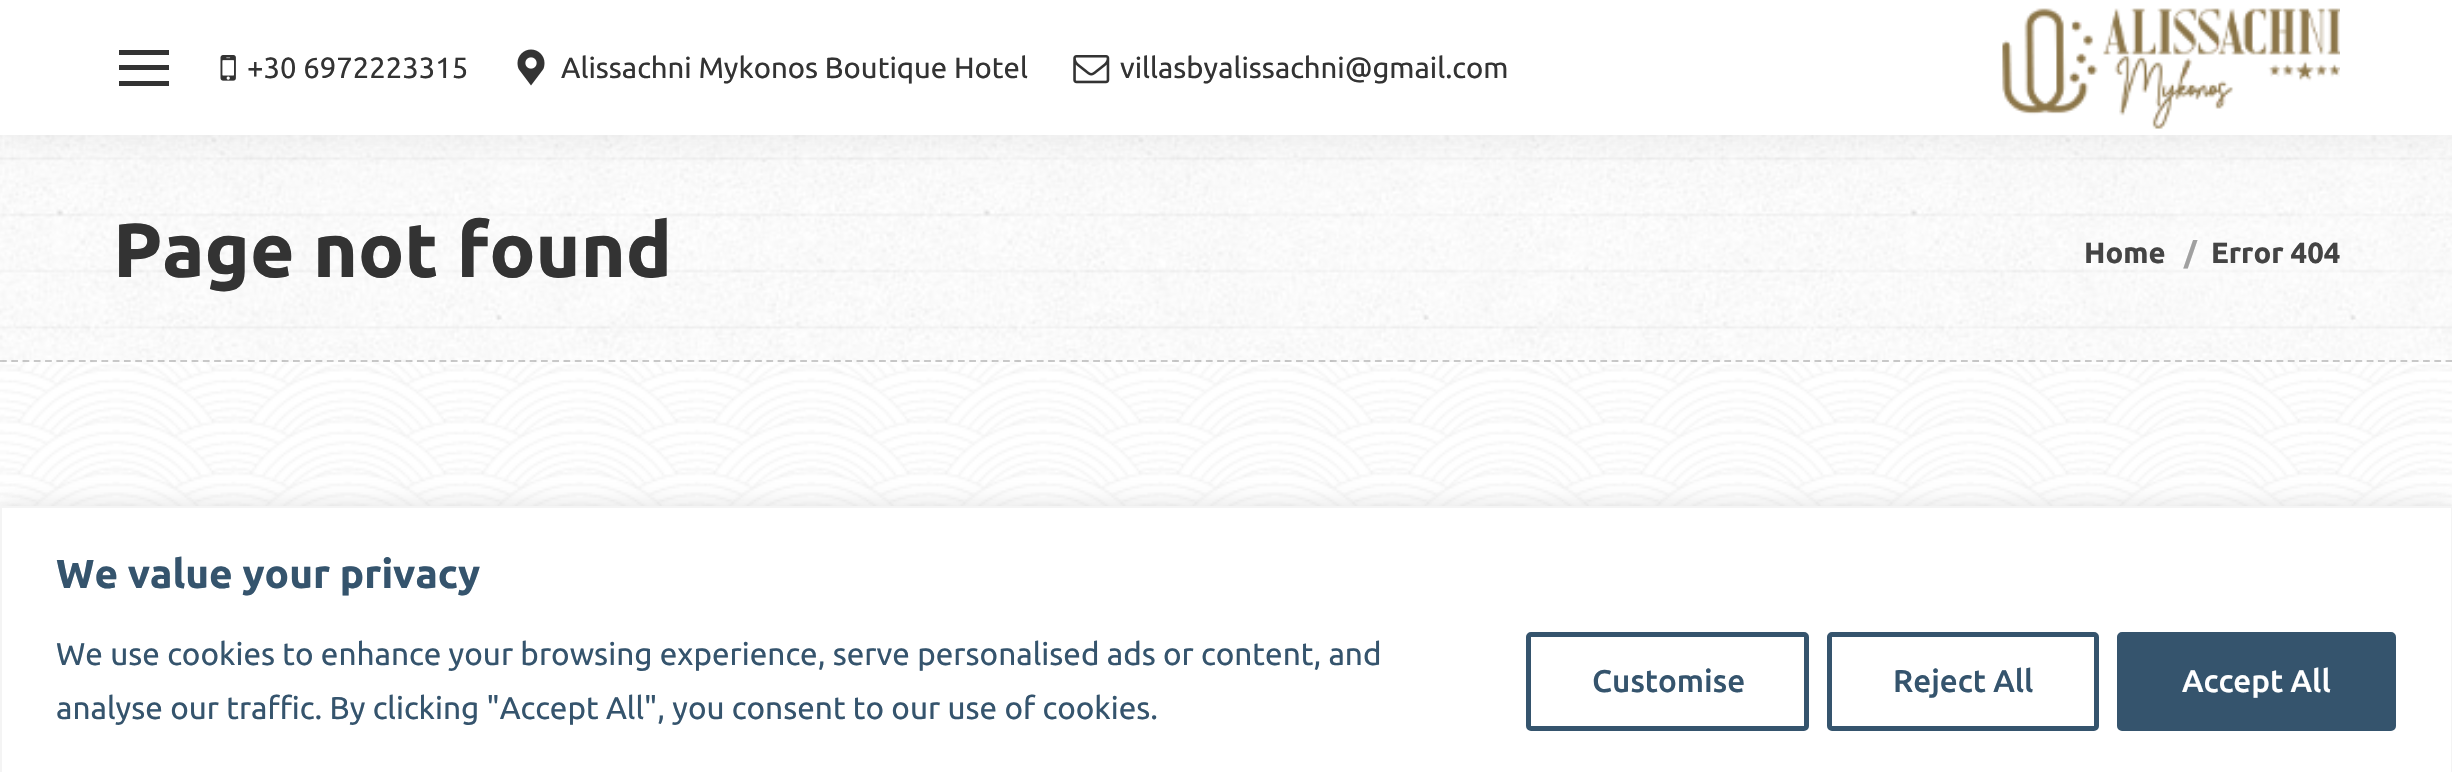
#include "include/core/SkBlurTypes.h"
#include "include/core/SkCanvas.h"
#include "include/core/SkData.h"
#include "include/core/SkFont.h"
#include "include/core/SkFontMgr.h"
#include "include/core/SkImage.h"
#include "include/core/SkMaskFilter.h"
#include "include/core/SkPaint.h"
#include "include/core/SkPathBuilder.h"
#include "include/core/SkTextBlob.h"
#include "include/effects/SkDashPathEffect.h"
#include "include/effects/SkGradientShader.h"
#include "include/utils/SkParsePath.h"

extern sk_sp<SkFontMgr> fontMgr;

void draw(SkCanvas* canvas) {
  SkPaint p;
  p.setAntiAlias(true);
  canvas->clear(SK_ColorWHITE);
  canvas->drawImageRect(SkImages::DeferredFromEncodedData(SkData::MakeFromFileName("images/1.png")), SkRect::MakeLTRB(0, 362, 2452, 506), SkSamplingOptions());
  canvas->drawImageRect(SkImages::DeferredFromEncodedData(SkData::MakeFromFileName("images/6.png")), SkRect::MakeLTRB(0, 135, 2452, 362), SkSamplingOptions());
  p.setColor(SkColorSetARGB(18, 0, 0, 0));
  p.setMaskFilter(SkMaskFilter::MakeBlur(kNormal_SkBlurStyle, 17));
  canvas->drawRect(SkRect::MakeLTRB(-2, -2, 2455, 137), p);
  p.setMaskFilter(nullptr);
  p.setColor(SK_ColorWHITE);
  canvas->drawRect(SkRect::MakeLTRB(0, 0, 2452, 135), p);
  p.setColor(SkColorSetRGB(51, 51, 51));
  canvas->drawRect(SkRect::MakeLTRB(119, 50, 169, 55), p);
  canvas->drawRect(SkRect::MakeLTRB(119, 65, 169, 70), p);
  canvas->drawRect(SkRect::MakeLTRB(119, 81, 169, 86), p);
  canvas->drawImageRect(SkImages::DeferredFromEncodedData(SkData::MakeFromFileName("images/2.png")), SkRect::MakeLTRB(220, 55, 236, 81), SkSamplingOptions());
  canvas->drawImageRect(SkImages::DeferredFromEncodedData(SkData::MakeFromFileName("images/3.png")), SkRect::MakeLTRB(517, 49, 545, 86), SkSamplingOptions());
  canvas->drawImageRect(SkImages::DeferredFromEncodedData(SkData::MakeFromFileName("images/4.png")), SkRect::MakeLTRB(1073, 55, 1110, 84), SkSamplingOptions());
  canvas->drawImageRect(SkImages::DeferredFromEncodedData(SkData::MakeFromFileName("images/5.png")), SkRect::MakeLTRB(2002, 8, 2340, 129), SkSamplingOptions());
  p.setStyle(SkPaint::kStroke_Style);
  p.setStrokeWidth(2.2f);
  p.setColor(SkColorSetARGB(51, 0, 0, 0));
  p.setPathEffect(SkDashPathEffect::Make({{6.75f, 4.52f}}, 0));
  canvas->drawPath(SkPathBuilder().moveTo(0, 361).lineTo(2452.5f, 361).detach(), p);
  p.setPathEffect(nullptr);
  p.setStyle(SkPaint::kFill_Style);
  p.setColor(SkColorSetARGB(51, 255, 255, 255));
  canvas->drawRoundRect(SkRect::MakeLTRB(2084, 227, 2340, 279), 5, 5, p);
  p.setColor(SkColorSetARGB(77, 172, 171, 171));
  p.setMaskFilter(SkMaskFilter::MakeBlur(kNormal_SkBlurStyle, 11));
  canvas->drawRect(SkRect::MakeLTRB(0, 504, 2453, 772), p);
  p.setMaskFilter(nullptr);
  p.setColor(SK_ColorWHITE);
  canvas->drawRect(SkRect::MakeLTRB(1, 507, 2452, 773), p);
  p.setStyle(SkPaint::kStroke_Style);
  p.setStrokeWidth(2);
  p.setColor(SkColorSetRGB(244, 244, 244));
  canvas->drawRect(SkRect::MakeLTRB(1, 507, 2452, 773), p);
  p.setStrokeWidth(5);
  p.setColor(SkColorSetRGB(53, 84, 109));
  canvas->drawRoundRect(SkRect::MakeLTRB(1528.5f, 634.5f, 1806.5f, 728.5f), 2.5f, 2.5f, p);
  canvas->drawRoundRect(SkRect::MakeLTRB(1829.5f, 634.5f, 2096.5f, 728.5f), 2.5f, 2.5f, p);
  p.setStyle(SkPaint::kFill_Style);
  canvas->drawRoundRect(SkRect::MakeLTRB(2119.5f, 634.5f, 2393.5f, 728.5f), 2.5f, 2.5f, p);
  p.setStyle(SkPaint::kStroke_Style);
  canvas->drawRoundRect(SkRect::MakeLTRB(2119.5f, 634.5f, 2393.5f, 728.5f), 2.5f, 2.5f, p);
  SkFont font1(fontMgr->matchFamilyStyle("Ubuntu", SkFontStyle::Normal()), 29.25f);
  font1.setSubpixel(true);
  p.setStyle(SkPaint::kFill_Style);
  p.setColor(SkColorSetRGB(51, 51, 51));
  canvas->drawString("+30 6972223315", 247, 78, font1, p);
  canvas->drawString("Alissachni Mykonos Boutique Hotel", 561, 78, font1, p);
  canvas->drawString("villasbyalissachni@gmail.com", 1120, 78, font1, p);
  SkFont font2(fontMgr->matchFamilyStyle("Ubuntu", SkFontStyle::Bold()), 76.5f);
  font2.setSubpixel(true);
  canvas->drawString("Page not found", 113, 277, font2, p);
  SkFont font3(fontMgr->matchFamilyStyle("Ubuntu", SkFontStyle::Bold()), 29.25f);
  font3.setSubpixel(true);
  p.setColor(SkColorSetRGB(68, 68, 68));
  canvas->drawString("Home", 2084, 263, font3, p);
  p.setColor(SkColorSetRGB(160, 160, 160));
  canvas->drawString("/", 2184, 263, font3, p);
  p.setColor(SkColorSetRGB(68, 68, 68));
  canvas->drawString("Error 404", 2211, 263, font3, p);
  SkFont font4(fontMgr->matchFamilyStyle("Ubuntu", SkFontStyle::Bold()), 40.5f);
  font4.setSubpixel(true);
  p.setColor(SkColorSetRGB(53, 84, 109));
  canvas->drawString("We value your privacy", 56, 588, font4, p);
  SkFont font5(fontMgr->matchFamilyStyle("Ubuntu", SkFontStyle::Normal()), 31.5f);
  font5.setSubpixel(true);
  canvas->drawString("We use cookies to enhance your browsing experience, serve personalised ads or content, and", 56, 665, font5, p);
  canvas->drawString("analyse our traffic. By clicking \"Accept All\", you consent to our use of cookies.", 56, 719, font5, p);
  SkFont font6(fontMgr->matchFamilyStyle("Ubuntu", SkFontStyle(500, SkFontStyle::kNormal_Width, SkFontStyle::kUpright_Slant)), 31.5f);
  font6.setSubpixel(true);
  canvas->drawString("Customise", 1592, 692, font6, p);
  canvas->drawString("Reject All", 1893, 692, font6, p);
  p.setColor(SK_ColorWHITE);
  canvas->drawString("Accept All", 2182, 692, font6, p);
}
